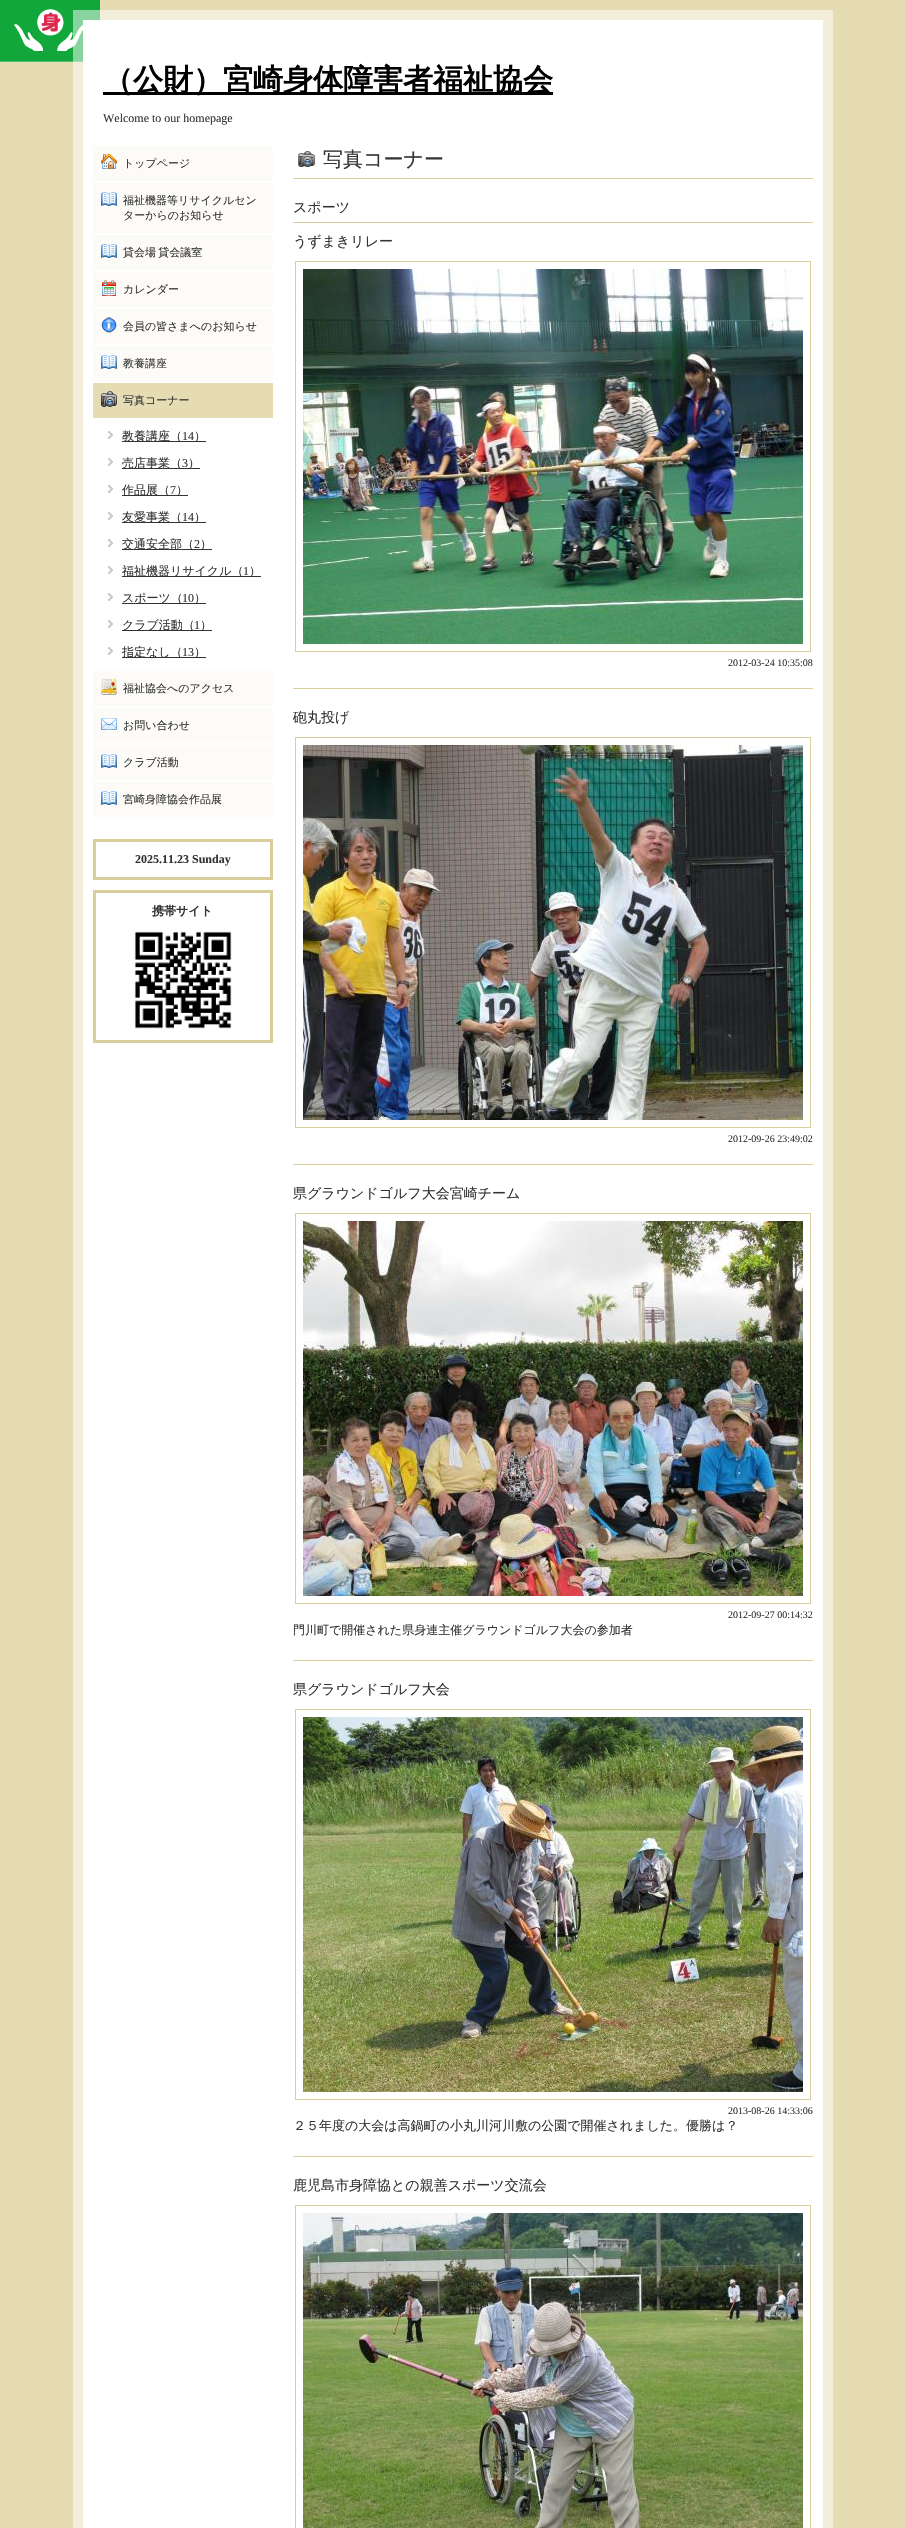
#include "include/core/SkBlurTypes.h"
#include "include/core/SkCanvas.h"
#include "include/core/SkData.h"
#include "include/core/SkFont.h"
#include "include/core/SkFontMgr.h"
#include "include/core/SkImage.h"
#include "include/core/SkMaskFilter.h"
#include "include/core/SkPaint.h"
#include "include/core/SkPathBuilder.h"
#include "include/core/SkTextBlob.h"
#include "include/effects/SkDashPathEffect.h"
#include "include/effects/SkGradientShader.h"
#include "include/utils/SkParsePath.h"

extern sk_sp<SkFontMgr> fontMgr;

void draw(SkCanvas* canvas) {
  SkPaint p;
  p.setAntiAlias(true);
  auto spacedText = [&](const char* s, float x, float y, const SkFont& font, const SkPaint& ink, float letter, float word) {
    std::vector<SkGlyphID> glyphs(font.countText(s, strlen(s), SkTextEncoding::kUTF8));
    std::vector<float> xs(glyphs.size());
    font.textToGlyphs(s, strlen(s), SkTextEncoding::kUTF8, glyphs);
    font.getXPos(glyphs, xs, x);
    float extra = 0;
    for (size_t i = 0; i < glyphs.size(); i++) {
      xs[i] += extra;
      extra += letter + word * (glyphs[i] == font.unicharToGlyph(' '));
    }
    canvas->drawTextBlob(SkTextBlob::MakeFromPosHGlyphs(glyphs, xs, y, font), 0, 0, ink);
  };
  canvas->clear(SkColorSetRGB(229, 220, 180));
  canvas->drawImageRect(SkImages::DeferredFromEncodedData(SkData::MakeFromFileName("images/1.png")), SkRect::MakeLTRB(0, 0, 100, 62), SkSamplingOptions());
  p.setColor(SkColorSetARGB(128, 255, 255, 255));
  canvas->drawRect(SkRect::MakeLTRB(73, 10, 833, 2528), p);
  p.setColor(SK_ColorWHITE);
  canvas->drawRect(SkRect::MakeLTRB(83, 20, 823, 2528), p);
  p.setColor(SK_ColorBLACK);
  canvas->drawRect(SkRect::MakeLTRB(103, 92, 553, 95), p);
  p.setColor(SkColorSetRGB(253, 251, 247));
  canvas->drawRect(SkRect::MakeLTRB(93, 146, 273, 181), p);
  canvas->drawImageRect(SkImages::DeferredFromEncodedData(SkData::MakeFromFileName("images/2.png")), SkRect::MakeLTRB(101, 154, 117, 169), SkSamplingOptions());
  canvas->drawRect(SkRect::MakeLTRB(93, 183, 273, 233), p);
  canvas->drawImageRect(SkImages::DeferredFromEncodedData(SkData::MakeFromFileName("images/3.png")), SkRect::MakeLTRB(101, 192, 117, 206), SkSamplingOptions());
  canvas->drawRect(SkRect::MakeLTRB(93, 235, 273, 270), p);
  canvas->drawImageRect(SkImages::DeferredFromEncodedData(SkData::MakeFromFileName("images/3.png")), SkRect::MakeLTRB(101, 244, 117, 258), SkSamplingOptions());
  canvas->drawRect(SkRect::MakeLTRB(93, 272, 273, 307), p);
  canvas->drawImageRect(SkImages::DeferredFromEncodedData(SkData::MakeFromFileName("images/4.png")), SkRect::MakeLTRB(102, 280, 116, 296), SkSamplingOptions());
  canvas->drawRect(SkRect::MakeLTRB(93, 309, 273, 344), p);
  canvas->drawImageRect(SkImages::DeferredFromEncodedData(SkData::MakeFromFileName("images/5.png")), SkRect::MakeLTRB(100, 317, 118, 333), SkSamplingOptions());
  canvas->drawRect(SkRect::MakeLTRB(93, 346, 273, 381), p);
  canvas->drawImageRect(SkImages::DeferredFromEncodedData(SkData::MakeFromFileName("images/3.png")), SkRect::MakeLTRB(101, 355, 117, 369), SkSamplingOptions());
  p.setColor(SkColorSetRGB(229, 220, 180));
  canvas->drawRect(SkRect::MakeLTRB(93, 383, 273, 418), p);
  canvas->drawImageRect(SkImages::DeferredFromEncodedData(SkData::MakeFromFileName("images/6.png")), SkRect::MakeLTRB(101, 391, 117, 407), SkSamplingOptions());
  canvas->drawImageRect(SkImages::DeferredFromEncodedData(SkData::MakeFromFileName("images/7.png")), SkRect::MakeLTRB(108, 431, 113, 439), SkSamplingOptions());
  p.setColor(SkColorSetRGB(51, 51, 51));
  canvas->drawRect(SkRect::MakeLTRB(122, 441, 206, 442), p);
  canvas->drawImageRect(SkImages::DeferredFromEncodedData(SkData::MakeFromFileName("images/7.png")), SkRect::MakeLTRB(108, 458, 113, 466), SkSamplingOptions());
  canvas->drawRect(SkRect::MakeLTRB(122, 468, 200, 469), p);
  canvas->drawImageRect(SkImages::DeferredFromEncodedData(SkData::MakeFromFileName("images/7.png")), SkRect::MakeLTRB(108, 485, 113, 493), SkSamplingOptions());
  canvas->drawRect(SkRect::MakeLTRB(122, 495, 188, 496), p);
  canvas->drawImageRect(SkImages::DeferredFromEncodedData(SkData::MakeFromFileName("images/7.png")), SkRect::MakeLTRB(108, 512, 113, 520), SkSamplingOptions());
  canvas->drawRect(SkRect::MakeLTRB(122, 522, 206, 523), p);
  canvas->drawImageRect(SkImages::DeferredFromEncodedData(SkData::MakeFromFileName("images/7.png")), SkRect::MakeLTRB(108, 539, 113, 547), SkSamplingOptions());
  canvas->drawRect(SkRect::MakeLTRB(122, 549, 212, 550), p);
  canvas->drawImageRect(SkImages::DeferredFromEncodedData(SkData::MakeFromFileName("images/7.png")), SkRect::MakeLTRB(108, 566, 113, 574), SkSamplingOptions());
  canvas->drawRect(SkRect::MakeLTRB(122, 576, 261, 577), p);
  canvas->drawImageRect(SkImages::DeferredFromEncodedData(SkData::MakeFromFileName("images/7.png")), SkRect::MakeLTRB(108, 593, 113, 601), SkSamplingOptions());
  canvas->drawRect(SkRect::MakeLTRB(122, 603, 206, 604), p);
  canvas->drawImageRect(SkImages::DeferredFromEncodedData(SkData::MakeFromFileName("images/7.png")), SkRect::MakeLTRB(108, 620, 113, 628), SkSamplingOptions());
  canvas->drawRect(SkRect::MakeLTRB(122, 630, 212, 631), p);
  canvas->drawImageRect(SkImages::DeferredFromEncodedData(SkData::MakeFromFileName("images/7.png")), SkRect::MakeLTRB(108, 647, 113, 655), SkSamplingOptions());
  canvas->drawRect(SkRect::MakeLTRB(122, 657, 206, 658), p);
  p.setColor(SkColorSetRGB(253, 251, 247));
  canvas->drawRect(SkRect::MakeLTRB(93, 671, 273, 706), p);
  canvas->drawImageRect(SkImages::DeferredFromEncodedData(SkData::MakeFromFileName("images/8.png")), SkRect::MakeLTRB(101, 679, 117, 695), SkSamplingOptions());
  canvas->drawRect(SkRect::MakeLTRB(93, 708, 273, 743), p);
  canvas->drawImageRect(SkImages::DeferredFromEncodedData(SkData::MakeFromFileName("images/9.png")), SkRect::MakeLTRB(101, 718, 117, 730), SkSamplingOptions());
  canvas->drawRect(SkRect::MakeLTRB(93, 745, 273, 780), p);
  canvas->drawImageRect(SkImages::DeferredFromEncodedData(SkData::MakeFromFileName("images/3.png")), SkRect::MakeLTRB(101, 754, 117, 768), SkSamplingOptions());
  canvas->drawRect(SkRect::MakeLTRB(93, 782, 273, 817), p);
  canvas->drawImageRect(SkImages::DeferredFromEncodedData(SkData::MakeFromFileName("images/3.png")), SkRect::MakeLTRB(101, 791, 117, 805), SkSamplingOptions());
  canvas->drawImageRect(SkImages::DeferredFromEncodedData(SkData::MakeFromFileName("images/10.png")), SkRect::MakeLTRB(298, 151, 315, 167), SkSamplingOptions());
  p.setColor(SkColorSetRGB(218, 207, 156));
  canvas->drawRect(SkRect::MakeLTRB(293, 178, 813, 179), p);
  canvas->drawRect(SkRect::MakeLTRB(293, 222, 813, 223), p);
  canvas->drawRect(SkRect::MakeLTRB(293, 688, 813, 689), p);
  p.setStyle(SkPaint::kStroke_Style);
  p.setStrokeWidth(1);
  canvas->drawRect(SkRect::MakeLTRB(295.5f, 261.5f, 810.5f, 651.5f), p);
  canvas->drawImageRect(SkImages::DeferredFromEncodedData(SkData::MakeFromFileName("images/11.png")), SkRect::MakeLTRB(303, 269, 803, 644), SkSamplingOptions());
  p.setStyle(SkPaint::kFill_Style);
  canvas->drawRect(SkRect::MakeLTRB(293, 1164, 813, 1165), p);
  p.setStyle(SkPaint::kStroke_Style);
  canvas->drawRect(SkRect::MakeLTRB(295.5f, 737.5f, 810.5f, 1127.5f), p);
  canvas->drawImageRect(SkImages::DeferredFromEncodedData(SkData::MakeFromFileName("images/12.png")), SkRect::MakeLTRB(303, 745, 803, 1120), SkSamplingOptions());
  p.setStyle(SkPaint::kFill_Style);
  canvas->drawRect(SkRect::MakeLTRB(293, 1660, 813, 1661), p);
  p.setStyle(SkPaint::kStroke_Style);
  canvas->drawRect(SkRect::MakeLTRB(295.5f, 1213.5f, 810.5f, 1603.5f), p);
  canvas->drawImageRect(SkImages::DeferredFromEncodedData(SkData::MakeFromFileName("images/13.png")), SkRect::MakeLTRB(303, 1221, 803, 1596), SkSamplingOptions());
  p.setStyle(SkPaint::kFill_Style);
  canvas->drawRect(SkRect::MakeLTRB(293, 2156, 813, 2157), p);
  p.setStyle(SkPaint::kStroke_Style);
  canvas->drawRect(SkRect::MakeLTRB(295.5f, 1709.5f, 810.5f, 2099.5f), p);
  canvas->drawImageRect(SkImages::DeferredFromEncodedData(SkData::MakeFromFileName("images/14.png")), SkRect::MakeLTRB(303, 1717, 803, 2092), SkSamplingOptions());
  canvas->drawRect(SkRect::MakeLTRB(295.5f, 2205.5f, 810.5f, 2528.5f), p);
  canvas->drawImageRect(SkImages::DeferredFromEncodedData(SkData::MakeFromFileName("images/15.png")), SkRect::MakeLTRB(303, 2213, 803, 2528), SkSamplingOptions());
  p.setStrokeWidth(3);
  canvas->drawRect(SkRect::MakeLTRB(94.5f, 840.5f, 271.5f, 878.5f), p);
  canvas->drawRect(SkRect::MakeLTRB(94.5f, 891.5f, 271.5f, 1041.5f), p);
  canvas->drawImageRect(SkImages::DeferredFromEncodedData(SkData::MakeFromFileName("images/16.png")), SkRect::MakeLTRB(134, 931, 232, 1029), SkSamplingOptions());
  SkFont font1(fontMgr->matchFamilyStyle("WenQuanYi Zen Hei", SkFontStyle::Bold()), 30);
  font1.setSubpixel(true);
  p.setStyle(SkPaint::kFill_Style);
  p.setColor(SK_ColorBLACK);
  canvas->drawString("（公財）宮崎身体障害者福祉協会", 103, 90, font1, p);
  SkFont font2(fontMgr->matchFamilyStyle("Liberation Serif", SkFontStyle::Normal()), 12);
  font2.setSubpixel(true);
  p.setColor(SkColorSetRGB(51, 51, 51));
  canvas->drawString("Welcome to our homepage", 103, 122, font2, p);
  SkFont font3(fontMgr->matchFamilyStyle("WenQuanYi Zen Hei", SkFontStyle(500, SkFontStyle::kNormal_Width, SkFontStyle::kUpright_Slant)), 11);
  font3.setSubpixel(true);
  canvas->drawString("トップページ", 123, 167, font3, p);
  canvas->drawString("福祉機器等リサイクルセン", 123, 204, font3, p);
  canvas->drawString("ターからのお知らせ", 123, 219, font3, p);
  spacedText("貸会場 貸会議室", 123, 256, font3, p, 0, -1);
  canvas->drawString("カレンダー", 123, 293, font3, p);
  canvas->drawString("会員の皆さまへのお知らせ", 123, 330, font3, p);
  canvas->drawString("教養講座", 123, 367, font3, p);
  canvas->drawString("写真コーナー", 123, 404, font3, p);
  SkFont font4(fontMgr->matchFamilyStyle("WenQuanYi Zen Hei", SkFontStyle(500, SkFontStyle::kNormal_Width, SkFontStyle::kUpright_Slant)), 12);
  font4.setSubpixel(true);
  canvas->drawString("教養講座（", 122, 440, font4, p);
  canvas->drawString("14", 182, 440, font2, p);
  canvas->drawString("）", 194, 440, font4, p);
  canvas->drawString("売店事業（", 122, 467, font4, p);
  canvas->drawString("3", 182, 467, font2, p);
  canvas->drawString("）", 188, 467, font4, p);
  canvas->drawString("作品展（", 122, 494, font4, p);
  canvas->drawString("7", 170, 494, font2, p);
  canvas->drawString("）", 176, 494, font4, p);
  canvas->drawString("友愛事業（", 122, 521, font4, p);
  canvas->drawString("14", 182, 521, font2, p);
  canvas->drawString("）", 194, 521, font4, p);
  canvas->drawString("交通安全部（", 122, 548, font4, p);
  canvas->drawString("2", 194, 548, font2, p);
  canvas->drawString("）", 200, 548, font4, p);
  canvas->drawString("福祉機器リサイクル（", 122, 575, font4, p);
  canvas->drawString("1", 243, 575, font2, p);
  canvas->drawString("）", 249, 575, font4, p);
  canvas->drawString("スポーツ（", 122, 602, font4, p);
  canvas->drawString("10", 182, 602, font2, p);
  canvas->drawString("）", 194, 602, font4, p);
  canvas->drawString("クラブ活動（", 122, 629, font4, p);
  canvas->drawString("1", 194, 629, font2, p);
  canvas->drawString("）", 200, 629, font4, p);
  canvas->drawString("指定なし（", 122, 656, font4, p);
  canvas->drawString("13", 182, 656, font2, p);
  canvas->drawString("）", 194, 656, font4, p);
  canvas->drawString("福祉協会へのアクセス", 123, 692, font3, p);
  canvas->drawString("お問い合わせ", 123, 729, font3, p);
  canvas->drawString("クラブ活動", 123, 766, font3, p);
  canvas->drawString("宮崎身障協会作品展", 123, 803, font3, p);
  SkFont font5(fontMgr->matchFamilyStyle("WenQuanYi Zen Hei", SkFontStyle(500, SkFontStyle::kNormal_Width, SkFontStyle::kUpright_Slant)), 20);
  font5.setSubpixel(true);
  canvas->drawString("写真コーナー", 323, 166, font5, p);
  SkFont font6(fontMgr->matchFamilyStyle("WenQuanYi Zen Hei", SkFontStyle(500, SkFontStyle::kNormal_Width, SkFontStyle::kUpright_Slant)), 14);
  font6.setSubpixel(true);
  canvas->drawString("スポーツ", 293, 212, font6, p);
  canvas->drawString("うずまきリレー", 293, 246, font6, p);
  SkFont font7(fontMgr->matchFamilyStyle("Liberation Serif", SkFontStyle::Normal()), 10);
  font7.setSubpixel(true);
  canvas->drawString("2012-03-24 10:35:08", 728, 666, font7, p);
  canvas->drawString("砲丸投げ", 293, 722, font6, p);
  canvas->drawString("2012-09-26 23:49:02", 728, 1142, font7, p);
  canvas->drawString("県グラウンドゴルフ大会宮崎チーム", 293, 1198, font6, p);
  canvas->drawString("2012-09-27 00:14:32", 728, 1618, font7, p);
  canvas->drawString("門川町で開催された県身連主催グラウンドゴルフ大会の参加者", 293, 1634, font4, p);
  canvas->drawString("県グラウンドゴルフ大会", 293, 1694, font6, p);
  canvas->drawString("2013-08-26 14:33:06", 728, 2114, font7, p);
  SkFont font8(fontMgr->matchFamilyStyle("WenQuanYi Zen Hei", SkFontStyle(500, SkFontStyle::kNormal_Width, SkFontStyle::kUpright_Slant)), 13);
  font8.setSubpixel(true);
  canvas->drawString("２５年度の大会は高鍋町の小丸川河川敷の公園で開催されました。優勝は？", 293, 2130, font8, p);
  canvas->drawString("鹿児島市身障協との親善スポーツ交流会", 293, 2190, font6, p);
  SkFont font9(fontMgr->matchFamilyStyle("Liberation Serif", SkFontStyle::Bold()), 12);
  font9.setSubpixel(true);
  canvas->drawString("2025.11.23 Sunday", 135, 863, font9, p);
  SkFont font10(fontMgr->matchFamilyStyle("WenQuanYi Zen Hei", SkFontStyle::Bold()), 12);
  font10.setSubpixel(true);
  canvas->drawString("携帯サイト", 152, 915, font10, p);
}
